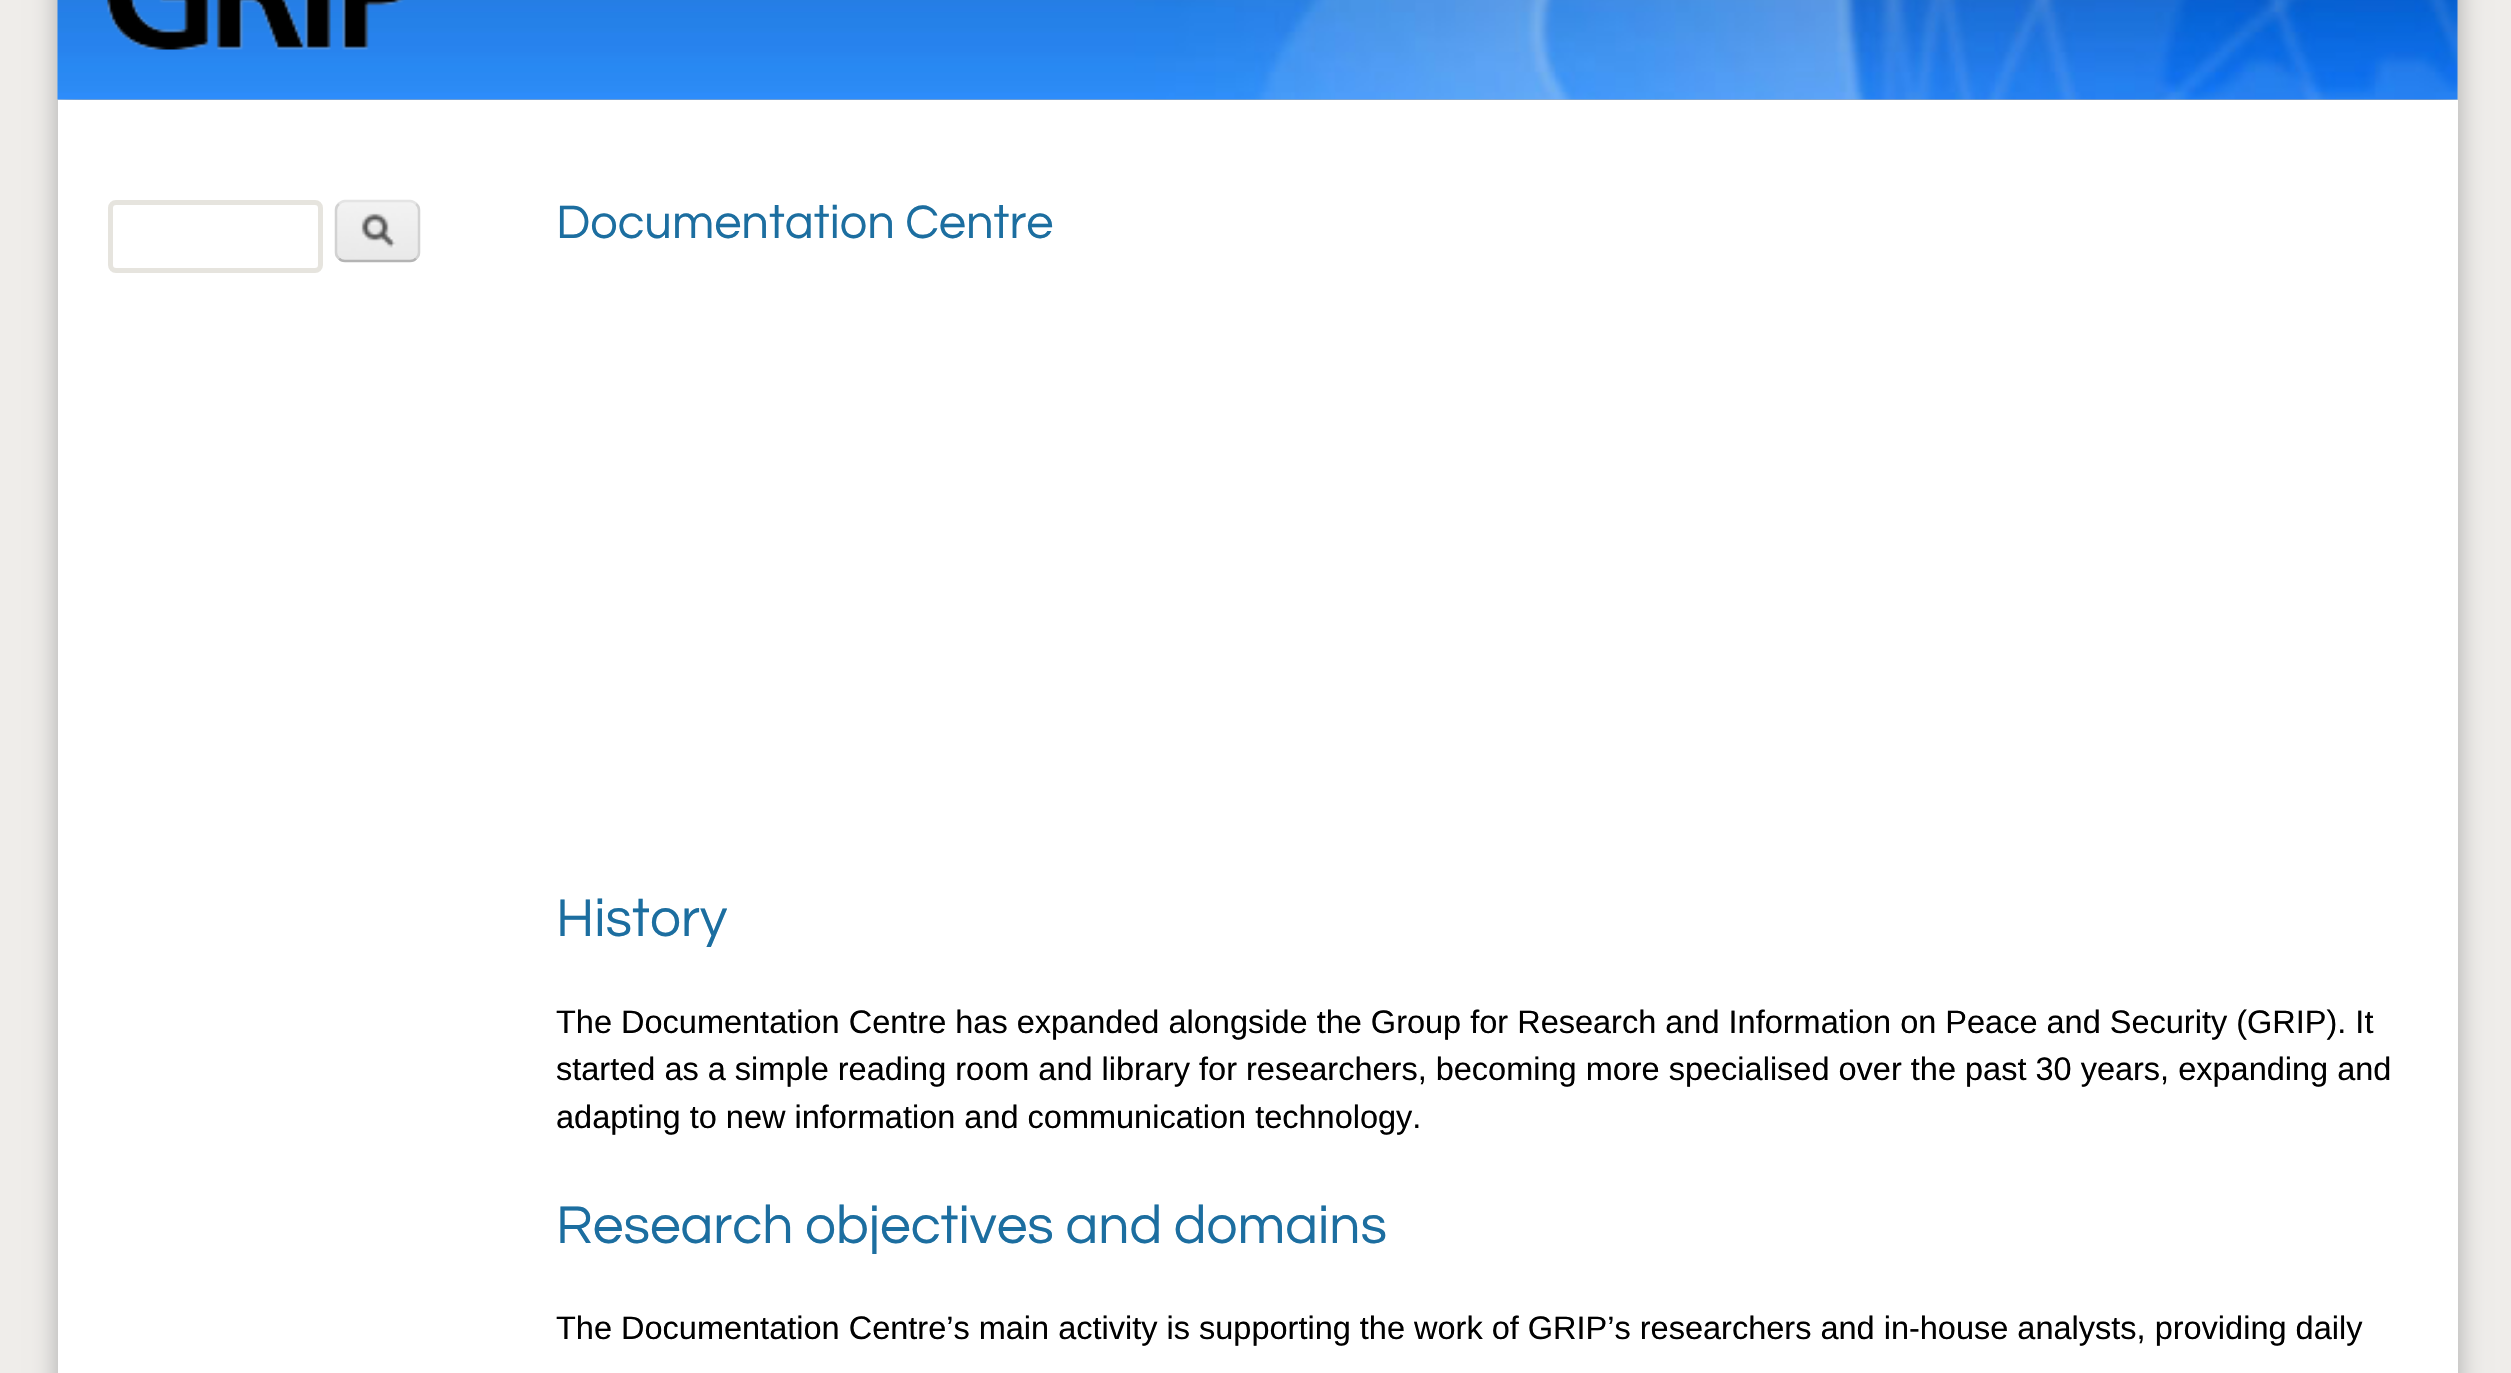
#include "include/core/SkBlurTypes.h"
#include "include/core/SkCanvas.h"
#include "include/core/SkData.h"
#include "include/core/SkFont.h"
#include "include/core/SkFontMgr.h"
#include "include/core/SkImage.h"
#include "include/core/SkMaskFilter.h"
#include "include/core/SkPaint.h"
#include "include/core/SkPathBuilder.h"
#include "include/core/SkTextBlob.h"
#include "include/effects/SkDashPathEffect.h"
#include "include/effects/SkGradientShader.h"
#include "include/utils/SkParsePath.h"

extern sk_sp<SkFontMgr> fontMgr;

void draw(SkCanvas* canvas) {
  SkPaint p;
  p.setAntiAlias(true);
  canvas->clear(SkColorSetRGB(239, 237, 234));
  p.setColor(SkColorSetRGB(170, 170, 170));
  p.setMaskFilter(SkMaskFilter::MakeBlur(kNormal_SkBlurStyle, 12.5f));
  canvas->drawRect(SkRect::MakeLTRB(58, -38, 2458, 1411), p);
  p.setMaskFilter(nullptr);
  canvas->drawImageRect(SkImages::DeferredFromEncodedData(SkData::MakeFromFileName("images/1.png")), SkRect::MakeLTRB(57, 0, 2458, 100), SkSamplingOptions());
  canvas->drawImageRect(SkImages::DeferredFromEncodedData(SkData::MakeFromFileName("images/2.png")), SkRect::MakeLTRB(107, 0, 405, 50), SkSamplingOptions());
  p.setColor(SK_ColorWHITE);
  canvas->drawRect(SkRect::MakeLTRB(58, 100, 2458, 1373), p);
  p.setStyle(SkPaint::kStroke_Style);
  p.setStrokeWidth(5);
  p.setColor(SkColorSetRGB(230, 228, 222));
  canvas->drawRoundRect(SkRect::MakeLTRB(110.5f, 202.5f, 320.5f, 270.5f), 5.5f, 5.5f, p);
  canvas->drawImageRect(SkImages::DeferredFromEncodedData(SkData::MakeFromFileName("images/3.png")), SkRect::MakeLTRB(335, 202, 420, 262), SkSamplingOptions());
  p.setStrokeWidth(2.5f);
  p.setColor(SkColorSetRGB(228, 228, 228));
  canvas->drawPath(SkPathBuilder().moveTo(339, 204).cubicTo(340.5f, 202, 342.5f, 201, 345, 201).lineTo(410, 201).cubicTo(412.5f, 201, 414.5f, 202, 416, 204).detach(), p);
  p.setColor(SkColorSetRGB(210, 210, 210));
  canvas->drawPath(SkPathBuilder().moveTo(416, 204).cubicTo(418, 205.5f, 419, 207.5f, 419, 210).lineTo(419, 252.5f).cubicTo(419, 255, 418, 257, 416, 258.5f).detach(), p);
  p.setColor(SkColorSetRGB(180, 180, 180));
  canvas->drawPath(SkPathBuilder().moveTo(416, 258.5f).cubicTo(414.5f, 260.5f, 412.5f, 261, 410, 261).lineTo(345, 261).cubicTo(342.5f, 261, 340.5f, 260.5f, 339, 258.5f).detach(), p);
  p.setColor(SkColorSetRGB(210, 210, 210));
  canvas->drawPath(SkPathBuilder().moveTo(339, 258.5f).cubicTo(337, 257, 336, 255, 336, 252.5f).lineTo(336, 210).cubicTo(336, 207.5f, 337, 205.5f, 339, 204).detach(), p);
  SkFont font1(fontMgr->matchFamilyStyle("Questrial", SkFontStyle::Normal()), 48.75f);
  font1.setSubpixel(true);
  p.setStyle(SkPaint::kFill_Style);
  p.setColor(SkColorSetRGB(28, 110, 160));
  canvas->drawString("Documentation Centre", 556, 238, font1, p);
  SkFont font2(fontMgr->matchFamilyStyle("Questrial", SkFontStyle::Normal()), 55);
  font2.setSubpixel(true);
  canvas->drawString("History", 556, 936, font2, p);
  SkFont font3(fontMgr->matchFamilyStyle("Liberation Sans", SkFontStyle::Normal()), 32.5f);
  font3.setSubpixel(true);
  p.setColor(SK_ColorBLACK);
  canvas->drawString("The Documentation Centre has expanded alongside the Group for Research and Information on Peace and Security (GRIP). It", 556, 1033, font3, p);
  canvas->drawString("started as a simple reading room and library for researchers, becoming more specialised over the past 30 years, expanding and", 556, 1080, font3, p);
  canvas->drawString("adapting to new information and communication technology.", 556, 1128, font3, p);
  p.setColor(SkColorSetRGB(28, 110, 160));
  canvas->drawString("Research objectives and domains", 556, 1243, font2, p);
  p.setColor(SK_ColorBLACK);
  canvas->drawString("The Documentation Centre’s main activity is supporting the work of GRIP’s researchers and in-house analysts, providing daily", 556, 1339, font3, p);
}
